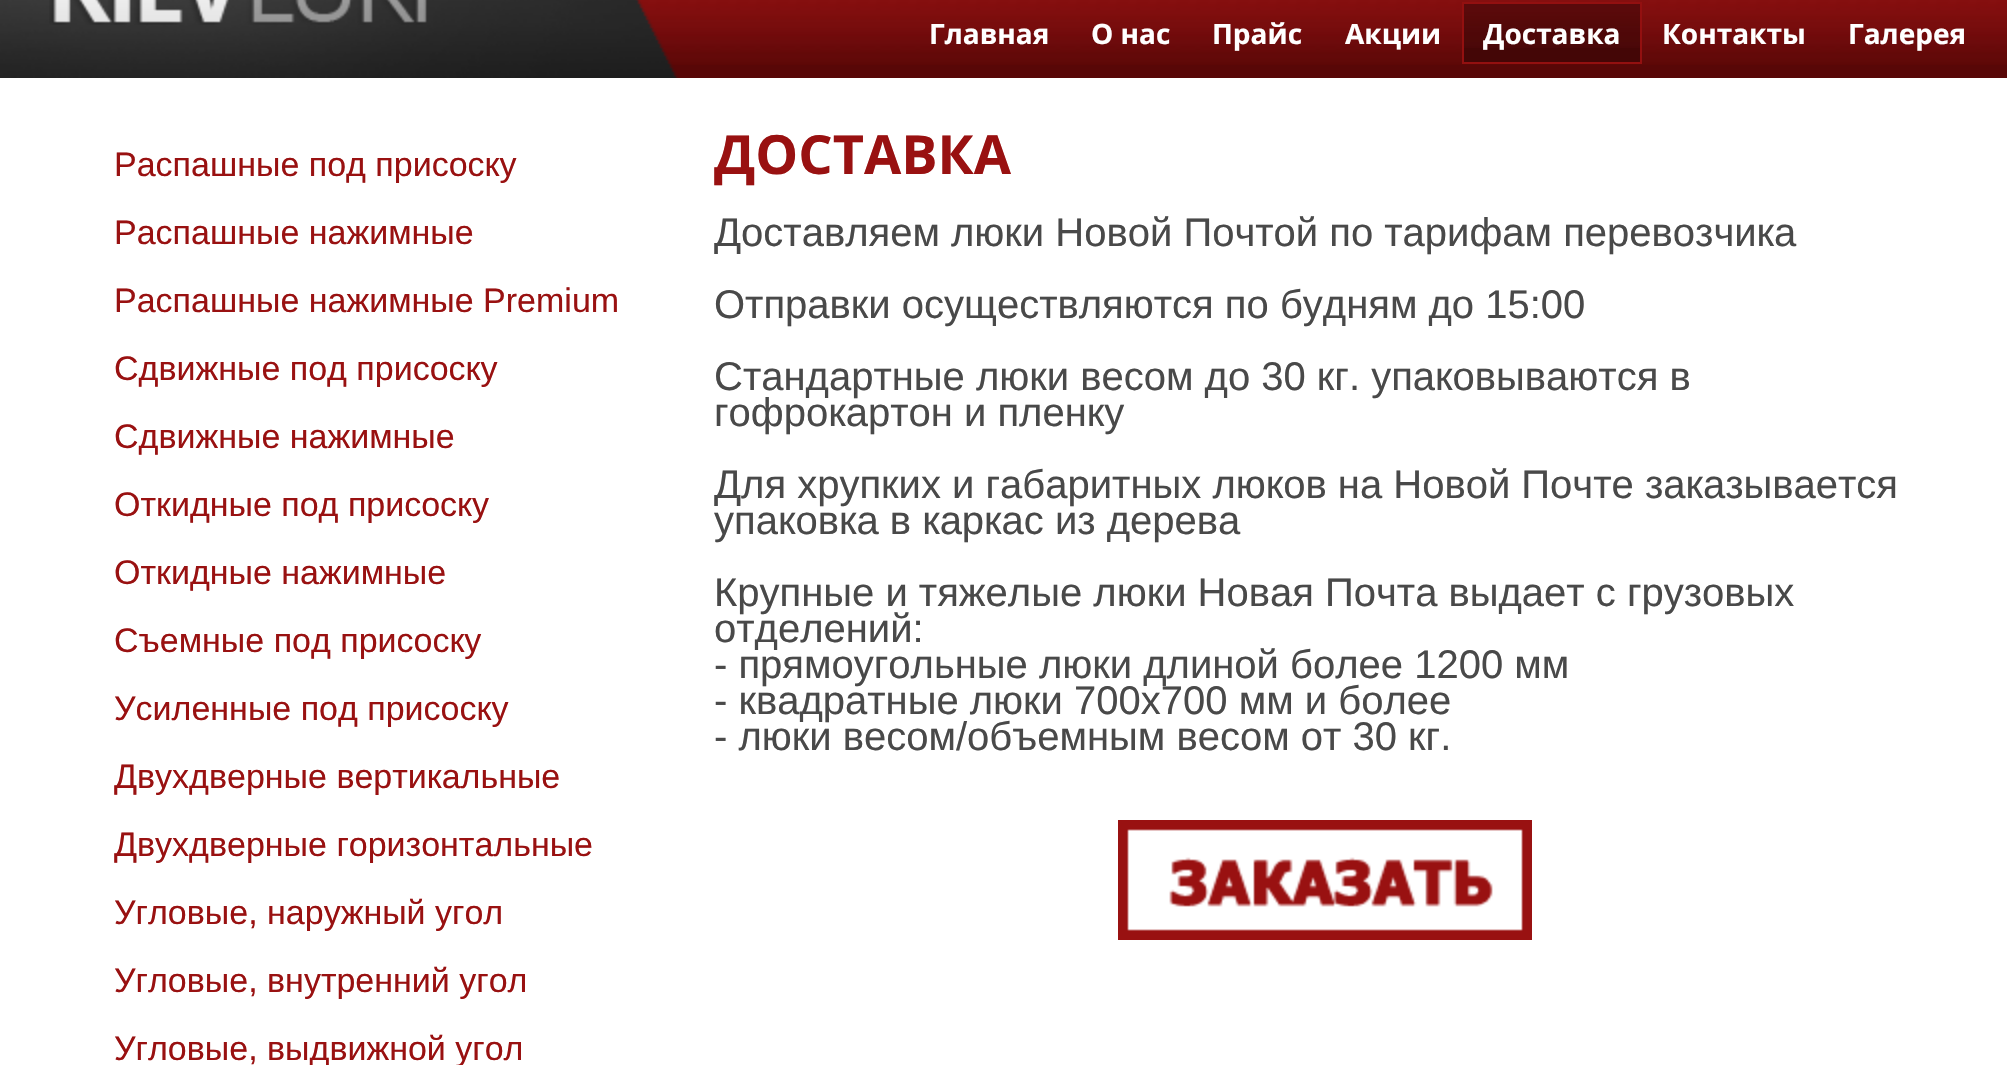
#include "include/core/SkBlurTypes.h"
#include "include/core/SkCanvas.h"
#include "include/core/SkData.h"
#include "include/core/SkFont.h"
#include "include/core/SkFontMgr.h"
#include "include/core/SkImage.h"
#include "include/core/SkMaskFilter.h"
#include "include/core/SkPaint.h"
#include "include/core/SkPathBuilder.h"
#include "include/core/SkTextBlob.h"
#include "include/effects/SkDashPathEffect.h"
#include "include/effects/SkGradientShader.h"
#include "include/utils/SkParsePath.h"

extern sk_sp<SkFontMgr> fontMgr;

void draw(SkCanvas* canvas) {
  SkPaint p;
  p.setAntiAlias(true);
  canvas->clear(SK_ColorWHITE);
  p.setColor(SkColorSetRGB(88, 7, 7));
  canvas->drawRect(SkRect::MakeLTRB(669, 65, 2007, 78), p);
  canvas->drawImageRect(SkImages::DeferredFromEncodedData(SkData::MakeFromFileName("images/3.png")), SkRect::MakeLTRB(635, 0, 2007, 65), SkSamplingOptions());
  canvas->drawImageRect(SkImages::DeferredFromEncodedData(SkData::MakeFromFileName("images/1.png")), SkRect::MakeLTRB(0, 0, 679, 78), SkSamplingOptions());
  canvas->drawImageRect(SkImages::DeferredFromEncodedData(SkData::MakeFromFileName("images/2.png")), SkRect::MakeLTRB(49, 0, 427, 25), SkSamplingOptions());
  p.setColor(SkColorSetRGB(68, 6, 6));
  canvas->drawRect(SkRect::MakeLTRB(1464, 48, 1640, 62), p);
  canvas->drawImageRect(SkImages::DeferredFromEncodedData(SkData::MakeFromFileName("images/4.png")), SkRect::MakeLTRB(1464, 4, 1640, 48), SkSamplingOptions());
  p.setStyle(SkPaint::kStroke_Style);
  p.setStrokeWidth(2);
  p.setColor(SkColorSetRGB(147, 16, 16));
  canvas->drawRect(SkRect::MakeLTRB(1463, 3, 1641, 63), p);
  canvas->drawImageRect(SkImages::DeferredFromEncodedData(SkData::MakeFromFileName("images/5.png")), SkRect::MakeLTRB(1118, 820, 1532, 940), SkSamplingOptions());
  SkFont font1(fontMgr->matchFamilyStyle("Open Sans", SkFontStyle::Bold()), 28);
  font1.setSubpixel(true);
  p.setStyle(SkPaint::kFill_Style);
  p.setColor(SK_ColorWHITE);
  canvas->drawString("Главная", 929, 44, font1, p);
  canvas->drawString("О нас", 1091, 44, font1, p);
  canvas->drawString("Прайс", 1212, 44, font1, p);
  canvas->drawString("Акции", 1345, 44, font1, p);
  canvas->drawString("Доставка", 1483, 44, font1, p);
  canvas->drawString("Контакты", 1662, 44, font1, p);
  canvas->drawString("Галерея", 1848, 44, font1, p);
  SkFont font2(fontMgr->matchFamilyStyle("Liberation Sans", SkFontStyle::Normal()), 34);
  font2.setSubpixel(true);
  p.setColor(SkColorSetRGB(153, 17, 17));
  canvas->drawString("Распашные под присоску", 114, 176, font2, p);
  canvas->drawString("Распашные нажимные", 114, 244, font2, p);
  canvas->drawString("Распашные нажимные Premium", 114, 312, font2, p);
  canvas->drawString("Сдвижные под присоску", 114, 380, font2, p);
  canvas->drawString("Сдвижные нажимные", 114, 448, font2, p);
  canvas->drawString("Откидные под присоску", 114, 516, font2, p);
  canvas->drawString("Откидные нажимные", 114, 584, font2, p);
  canvas->drawString("Съемные под присоску", 114, 652, font2, p);
  canvas->drawString("Усиленные под присоску", 114, 720, font2, p);
  canvas->drawString("Двухдверные вертикальные", 114, 788, font2, p);
  canvas->drawString("Двухдверные горизонтальные", 114, 856, font2, p);
  canvas->drawString("Угловые, наружный угол", 114, 924, font2, p);
  canvas->drawString("Угловые, внутренний угол", 114, 992, font2, p);
  canvas->drawString("Угловые, выдвижной угол", 114, 1060, font2, p);
  SkFont font3(fontMgr->matchFamilyStyle("Open Sans", SkFontStyle::Bold()), 54);
  font3.setSubpixel(true);
  canvas->drawString("ДОСТАВКА", 714, 174, font3, p);
  SkFont font4(fontMgr->matchFamilyStyle("Liberation Sans", SkFontStyle::Normal()), 40);
  font4.setSubpixel(true);
  p.setColor(SkColorSetRGB(73, 73, 73));
  canvas->drawString("Доставляем люки Новой Почтой по тарифам перевозчика", 714, 246, font4, p);
  canvas->drawString("Отправки осуществляются по будням до 15:00", 714, 318, font4, p);
  canvas->drawString("Стандартные люки весом до 30 кг. упаковываются в", 714, 390, font4, p);
  canvas->drawString("гофрокартон и пленку", 714, 426, font4, p);
  canvas->drawString("Для хрупких и габаритных люков на Новой Почте заказывается", 714, 498, font4, p);
  canvas->drawString("упаковка в каркас из дерева", 714, 534, font4, p);
  canvas->drawString("Крупные и тяжелые люки Новая Почта выдает с грузовых", 714, 606, font4, p);
  canvas->drawString("отделений:", 714, 642, font4, p);
  canvas->drawString("- прямоугольные люки длиной более 1200 мм", 714, 678, font4, p);
  canvas->drawString("- квадратные люки 700х700 мм и более", 714, 714, font4, p);
  canvas->drawString("- люки весом/объемным весом от 30 кг.", 714, 750, font4, p);
}
